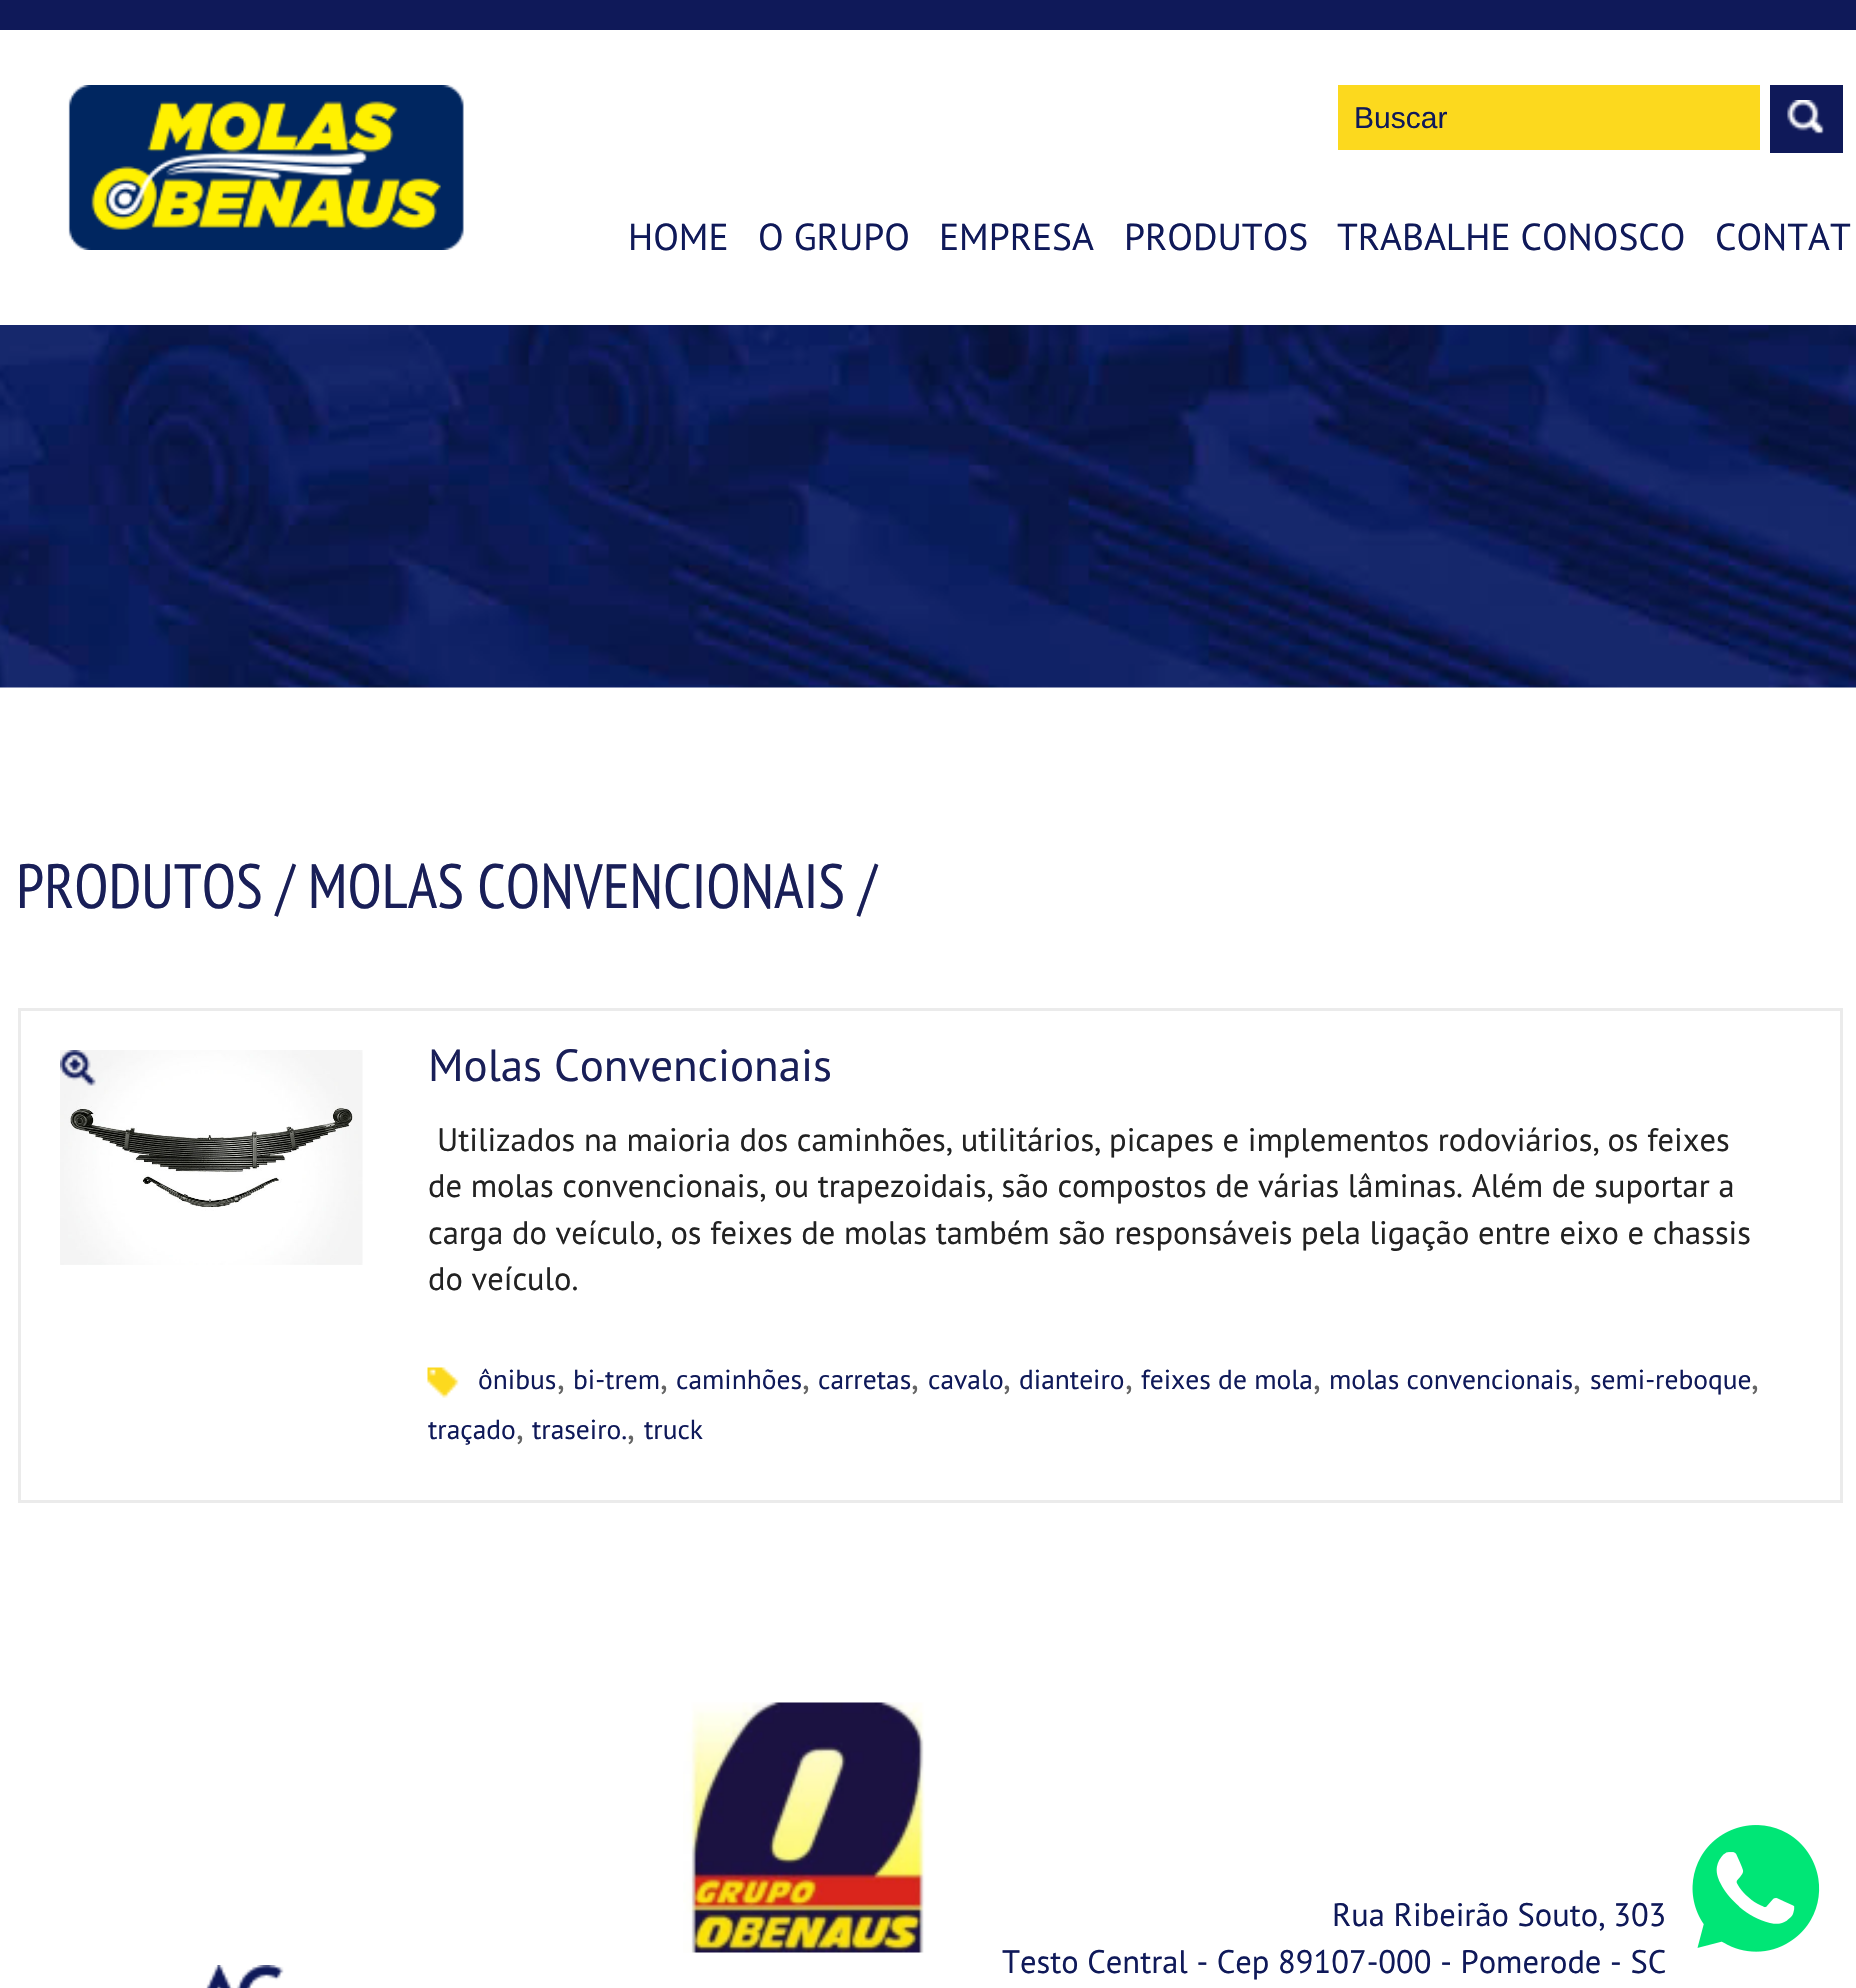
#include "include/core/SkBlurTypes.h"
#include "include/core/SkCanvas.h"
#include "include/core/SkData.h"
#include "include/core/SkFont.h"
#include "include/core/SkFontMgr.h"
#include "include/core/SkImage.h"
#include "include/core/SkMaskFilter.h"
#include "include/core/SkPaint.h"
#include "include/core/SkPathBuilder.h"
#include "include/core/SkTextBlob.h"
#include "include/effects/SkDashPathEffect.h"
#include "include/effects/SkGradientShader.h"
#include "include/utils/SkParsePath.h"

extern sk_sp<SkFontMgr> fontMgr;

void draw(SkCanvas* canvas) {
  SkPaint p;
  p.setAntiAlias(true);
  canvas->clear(SK_ColorWHITE);
  p.setColor(SkColorSetRGB(15, 25, 89));
  canvas->drawRect(SkRect::MakeLTRB(0, 0, 1856, 30), p);
  canvas->drawImageRect(SkImages::DeferredFromEncodedData(SkData::MakeFromFileName("images/1.png")), SkRect::MakeLTRB(68, 85, 464, 250), SkSamplingOptions());
  p.setColor(SkColorSetRGB(252, 217, 30));
  canvas->drawRect(SkRect::MakeLTRB(1338, 85, 1760, 150), p);
  p.setColor(SkColorSetRGB(15, 25, 89));
  canvas->drawRect(SkRect::MakeLTRB(1770, 85, 1843, 153), p);
  canvas->drawImageRect(SkImages::DeferredFromEncodedData(SkData::MakeFromFileName("images/2.png")), SkRect::MakeLTRB(1787, 100, 1824, 134), SkSamplingOptions());
  canvas->drawImageRect(SkImages::DeferredFromEncodedData(SkData::MakeFromFileName("images/3.png")), SkRect::MakeLTRB(0, 325, 1856, 688), SkSamplingOptions());
  p.setStyle(SkPaint::kStroke_Style);
  p.setStrokeWidth(3);
  p.setColor(SkColorSetRGB(235, 235, 235));
  canvas->drawRect(SkRect::MakeLTRB(19.5f, 1009.5f, 1841.5f, 1501.5f), p);
  canvas->drawImageRect(SkImages::DeferredFromEncodedData(SkData::MakeFromFileName("images/4.png")), SkRect::MakeLTRB(60, 1050, 363, 1265), SkSamplingOptions());
  canvas->drawImageRect(SkImages::DeferredFromEncodedData(SkData::MakeFromFileName("images/5.png")), SkRect::MakeLTRB(60, 1050, 96, 1086), SkSamplingOptions());
  canvas->drawImageRect(SkImages::DeferredFromEncodedData(SkData::MakeFromFileName("images/6.png")), SkRect::MakeLTRB(427, 1367, 459, 1398), SkSamplingOptions());
  canvas->drawImageRect(SkImages::DeferredFromEncodedData(SkData::MakeFromFileName("images/7.png")), SkRect::MakeLTRB(206, 1965, 284, 1988), SkSamplingOptions());
  canvas->drawImageRect(SkImages::DeferredFromEncodedData(SkData::MakeFromFileName("images/8.png")), SkRect::MakeLTRB(683, 1702, 925, 1953), SkSamplingOptions());
  canvas->drawImageRect(SkImages::DeferredFromEncodedData(SkData::MakeFromFileName("images/9.png")), SkRect::MakeLTRB(1692, 1825, 1820, 1952), SkSamplingOptions());
  SkFont font1(fontMgr->matchFamilyStyle("Liberation Sans", SkFontStyle::Normal()), 30);
  font1.setSubpixel(true);
  p.setStyle(SkPaint::kFill_Style);
  p.setColor(SkColorSetRGB(15, 25, 89));
  canvas->drawString("Buscar", 1354, 128, font1, p);
  SkFont font2(fontMgr->matchFamilyStyle("PT Sans", SkFontStyle::Normal()), 37.5f);
  font2.setSubpixel(true);
  canvas->drawString("HOME", 628, 250, font2, p);
  canvas->drawString("O GRUPO", 758, 250, font2, p);
  canvas->drawString("EMPRESA", 939, 250, font2, p);
  canvas->drawString("PRODUTOS", 1124, 250, font2, p);
  canvas->drawString("TRABALHE CONOSCO", 1337, 250, font2, p);
  canvas->drawString("CONTAT", 1715, 250, font2, p);
  SkFont font3(fontMgr->matchFamilyStyle("PT Sans Narrow", SkFontStyle::Normal()), 62.5f);
  font3.setSubpixel(true);
  p.setColor(SkColorSetRGB(25, 31, 88));
  canvas->drawString("PRODUTOS / MOLAS CONVENCIONAIS /", 16, 908, font3, p);
  SkFont font4(fontMgr->matchFamilyStyle("PT Sans", SkFontStyle::Normal()), 45);
  font4.setSubpixel(true);
  canvas->drawString("Molas Convencionais", 428, 1081, font4, p);
  SkFont font5(fontMgr->matchFamilyStyle("PT Sans", SkFontStyle::Normal()), 32.5f);
  font5.setSubpixel(true);
  p.setColor(SkColorSetRGB(34, 34, 34));
  canvas->drawString("Utilizados na maioria dos caminhões, utilitários, picapes e implementos rodoviários, os feixes", 437, 1151, font5, p);
  canvas->drawString("de molas convencionais, ou trapezoidais, são compostos de várias lâminas. Além de suportar a", 428, 1197, font5, p);
  canvas->drawString("carga do veículo, os feixes de molas também são responsáveis pela ligação entre eixo e chassis", 428, 1244, font5, p);
  canvas->drawString("do veículo.", 428, 1290, font5, p);
  SkFont font6(fontMgr->matchFamilyStyle("PT Sans", SkFontStyle::Normal()), 27.5f);
  font6.setSubpixel(true);
  p.setColor(SkColorSetRGB(15, 25, 89));
  canvas->drawString("ônibus", 478, 1389, font6, p);
  SkFont font7(fontMgr->matchFamilyStyle("PT Sans", SkFontStyle::Normal()), 35);
  font7.setSubpixel(true);
  p.setColor(SkColorSetRGB(101, 101, 101));
  canvas->drawString(",", 557, 1389, font7, p);
  p.setColor(SkColorSetRGB(15, 25, 89));
  canvas->drawString("bi-trem", 573, 1389, font6, p);
  p.setColor(SkColorSetRGB(101, 101, 101));
  canvas->drawString(",", 660, 1389, font7, p);
  p.setColor(SkColorSetRGB(15, 25, 89));
  canvas->drawString("caminhões", 676, 1389, font6, p);
  p.setColor(SkColorSetRGB(101, 101, 101));
  canvas->drawString(",", 802, 1389, font7, p);
  p.setColor(SkColorSetRGB(15, 25, 89));
  canvas->drawString("carretas", 818, 1389, font6, p);
  p.setColor(SkColorSetRGB(101, 101, 101));
  canvas->drawString(",", 911, 1389, font7, p);
  p.setColor(SkColorSetRGB(15, 25, 89));
  canvas->drawString("cavalo", 928, 1389, font6, p);
  p.setColor(SkColorSetRGB(101, 101, 101));
  canvas->drawString(",", 1003, 1389, font7, p);
  p.setColor(SkColorSetRGB(15, 25, 89));
  canvas->drawString("dianteiro", 1019, 1389, font6, p);
  p.setColor(SkColorSetRGB(101, 101, 101));
  canvas->drawString(",", 1125, 1389, font7, p);
  p.setColor(SkColorSetRGB(15, 25, 89));
  canvas->drawString("feixes de mola", 1141, 1389, font6, p);
  p.setColor(SkColorSetRGB(101, 101, 101));
  canvas->drawString(",", 1313, 1389, font7, p);
  p.setColor(SkColorSetRGB(15, 25, 89));
  canvas->drawString("molas convencionais", 1329, 1389, font6, p);
  p.setColor(SkColorSetRGB(101, 101, 101));
  canvas->drawString(",", 1573, 1389, font7, p);
  p.setColor(SkColorSetRGB(15, 25, 89));
  canvas->drawString("semi-reboque", 1590, 1389, font6, p);
  p.setColor(SkColorSetRGB(101, 101, 101));
  canvas->drawString(",", 1751, 1389, font7, p);
  p.setColor(SkColorSetRGB(15, 25, 89));
  canvas->drawString("traçado", 428, 1439, font6, p);
  p.setColor(SkColorSetRGB(101, 101, 101));
  canvas->drawString(",", 516, 1439, font7, p);
  p.setColor(SkColorSetRGB(15, 25, 89));
  canvas->drawString("traseiro.", 532, 1439, font6, p);
  p.setColor(SkColorSetRGB(101, 101, 101));
  canvas->drawString(",", 627, 1439, font7, p);
  p.setColor(SkColorSetRGB(15, 25, 89));
  canvas->drawString("truck", 644, 1439, font6, p);
  canvas->drawString("Rua Ribeirão Souto, 303", 1332, 1926, font5, p);
  canvas->drawString("Testo Central - Cep 89107-000 - Pomerode - SC", 1002, 1973, font5, p);
}
